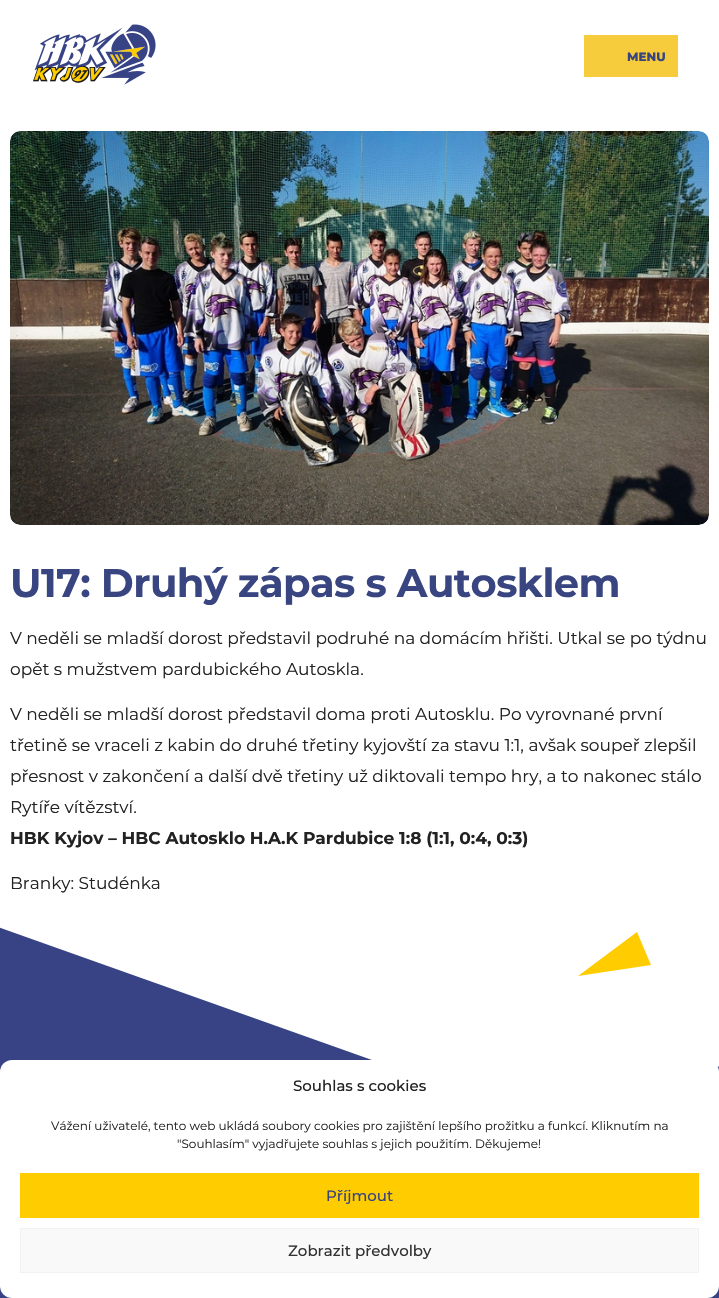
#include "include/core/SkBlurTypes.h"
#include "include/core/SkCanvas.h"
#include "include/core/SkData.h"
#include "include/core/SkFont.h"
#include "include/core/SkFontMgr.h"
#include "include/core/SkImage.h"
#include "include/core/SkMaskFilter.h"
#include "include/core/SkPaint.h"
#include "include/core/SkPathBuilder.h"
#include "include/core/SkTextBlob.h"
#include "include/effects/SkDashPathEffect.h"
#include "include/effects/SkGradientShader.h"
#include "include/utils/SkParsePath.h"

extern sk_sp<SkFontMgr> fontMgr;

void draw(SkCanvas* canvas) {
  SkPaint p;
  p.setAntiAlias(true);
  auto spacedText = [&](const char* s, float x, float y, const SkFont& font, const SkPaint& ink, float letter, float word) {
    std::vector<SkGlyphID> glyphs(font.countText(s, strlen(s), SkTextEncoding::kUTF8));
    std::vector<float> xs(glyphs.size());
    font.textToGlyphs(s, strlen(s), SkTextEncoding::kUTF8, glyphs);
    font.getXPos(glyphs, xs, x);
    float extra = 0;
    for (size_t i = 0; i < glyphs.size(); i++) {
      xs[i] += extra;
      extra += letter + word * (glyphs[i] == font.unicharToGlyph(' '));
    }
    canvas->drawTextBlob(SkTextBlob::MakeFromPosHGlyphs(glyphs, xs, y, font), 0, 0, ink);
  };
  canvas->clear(SK_ColorWHITE);
  canvas->drawImageRect(SkImages::DeferredFromEncodedData(SkData::MakeFromFileName("images/1.png")), SkRect::MakeLTRB(33, 24, 156, 85), SkSamplingOptions());
  p.setColor(SkColorSetRGB(246, 204, 61));
  canvas->drawRect(SkRect::MakeLTRB(584, 35, 678, 77), p);
  canvas->drawImageRect(SkImages::DeferredFromEncodedData(SkData::MakeFromFileName("images/2.png")), SkRect::MakeLTRB(10, 131, 709, 525), SkSamplingOptions());
  p.setColor(SkColorSetRGB(55, 67, 132));
  canvas->drawPath(SkPathBuilder().moveTo(-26, 1170).lineTo(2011, 887).lineTo(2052, 1181).lineTo(15, 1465).close().detach(), p);
  canvas->drawPath(SkPathBuilder().moveTo(417, 1076).lineTo(-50, 910).lineTo(-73, 1152).close().detach(), p);
  p.setColor(SkColorSetRGB(255, 204, 0));
  canvas->drawPath(SkPathBuilder().moveTo(578, 976).lineTo(651, 965).lineTo(637, 932).close().detach(), p);
  p.setColor(SK_ColorWHITE);
  canvas->drawRoundRect(SkRect::MakeLTRB(0, 1060, 719, 1298), 12, 12, p);
  p.setColor(SkColorSetRGB(255, 204, 0));
  canvas->drawRect(SkRect::MakeLTRB(20, 1173, 699, 1218), p);
  p.setColor(SkColorSetRGB(249, 249, 249));
  canvas->drawRect(SkRect::MakeLTRB(20.5f, 1228.5f, 698.5f, 1272.5f), p);
  p.setStyle(SkPaint::kStroke_Style);
  p.setStrokeWidth(1);
  p.setColor(SkColorSetRGB(242, 242, 242));
  canvas->drawRect(SkRect::MakeLTRB(20.5f, 1228.5f, 698.5f, 1272.5f), p);
  SkFont font1(fontMgr->matchFamilyStyle("Montserrat", SkFontStyle(800, SkFontStyle::kNormal_Width, SkFontStyle::kUpright_Slant)), 12);
  font1.setSubpixel(true);
  p.setStyle(SkPaint::kFill_Style);
  p.setColor(SkColorSetRGB(57, 69, 129));
  canvas->drawString("MENU", 627, 61, font1, p);
  SkFont font2(fontMgr->matchFamilyStyle("Montserrat", SkFontStyle::Bold()), 40);
  font2.setSubpixel(true);
  spacedText("U17: Druhý zápas s Autosklem", 10, 597, font2, p, -0.6f, 0);
  SkFont font3(fontMgr->matchFamilyStyle("Montserrat", SkFontStyle::Normal()), 17);
  font3.setSubpixel(true);
  p.setColor(SkColorSetRGB(34, 34, 34));
  canvas->drawString("V neděli se mladší dorost představil podruhé na domácím hřišti. Utkal se po týdnu", 10, 644, font3, p);
  canvas->drawString("opět s mužstvem pardubického Autoskla.", 10, 675, font3, p);
  canvas->drawString("V neděli se mladší dorost představil doma proti Autosklu. Po vyrovnané první", 10, 720, font3, p);
  canvas->drawString("třetině se vraceli z kabin do druhé třetiny kyjovští za stavu 1:1, avšak soupeř zlepšil", 10, 751, font3, p);
  canvas->drawString("přesnost v zakončení a další dvě třetiny už diktovali tempo hry, a to nakonec stálo", 10, 782, font3, p);
  canvas->drawString("Rytíře vítězství.", 10, 813, font3, p);
  SkFont font4(fontMgr->matchFamilyStyle("Montserrat", SkFontStyle::Bold()), 17);
  font4.setSubpixel(true);
  canvas->drawString("HBK Kyjov – HBC Autosklo H.A.K Pardubice 1:8 (1:1, 0:4, 0:3)", 10, 844, font4, p);
  canvas->drawString("Branky: Studénka", 10, 889, font3, p);
  SkFont font5(fontMgr->matchFamilyStyle("Montserrat", SkFontStyle(500, SkFontStyle::kNormal_Width, SkFontStyle::kUpright_Slant)), 15);
  font5.setSubpixel(true);
  canvas->drawString("Souhlas s cookies", 293, 1091, font5, p);
  SkFont font6(fontMgr->matchFamilyStyle("Montserrat", SkFontStyle::Normal()), 12);
  font6.setSubpixel(true);
  canvas->drawString("Vážení uživatelé, tento web ukládá soubory cookies pro zajištění lepšího prožitku a funkcí. Kliknutím na", 51, 1130, font6, p);
  canvas->drawString("\"Souhlasím\" vyjadřujete souhlas s jejich použitím. Děkujeme!", 177, 1148, font6, p);
  p.setColor(SkColorSetRGB(57, 69, 129));
  canvas->drawString("Příjmout", 326, 1201, font5, p);
  p.setColor(SkColorSetRGB(51, 51, 51));
  canvas->drawString("Zobrazit předvolby", 288, 1256, font5, p);
}
